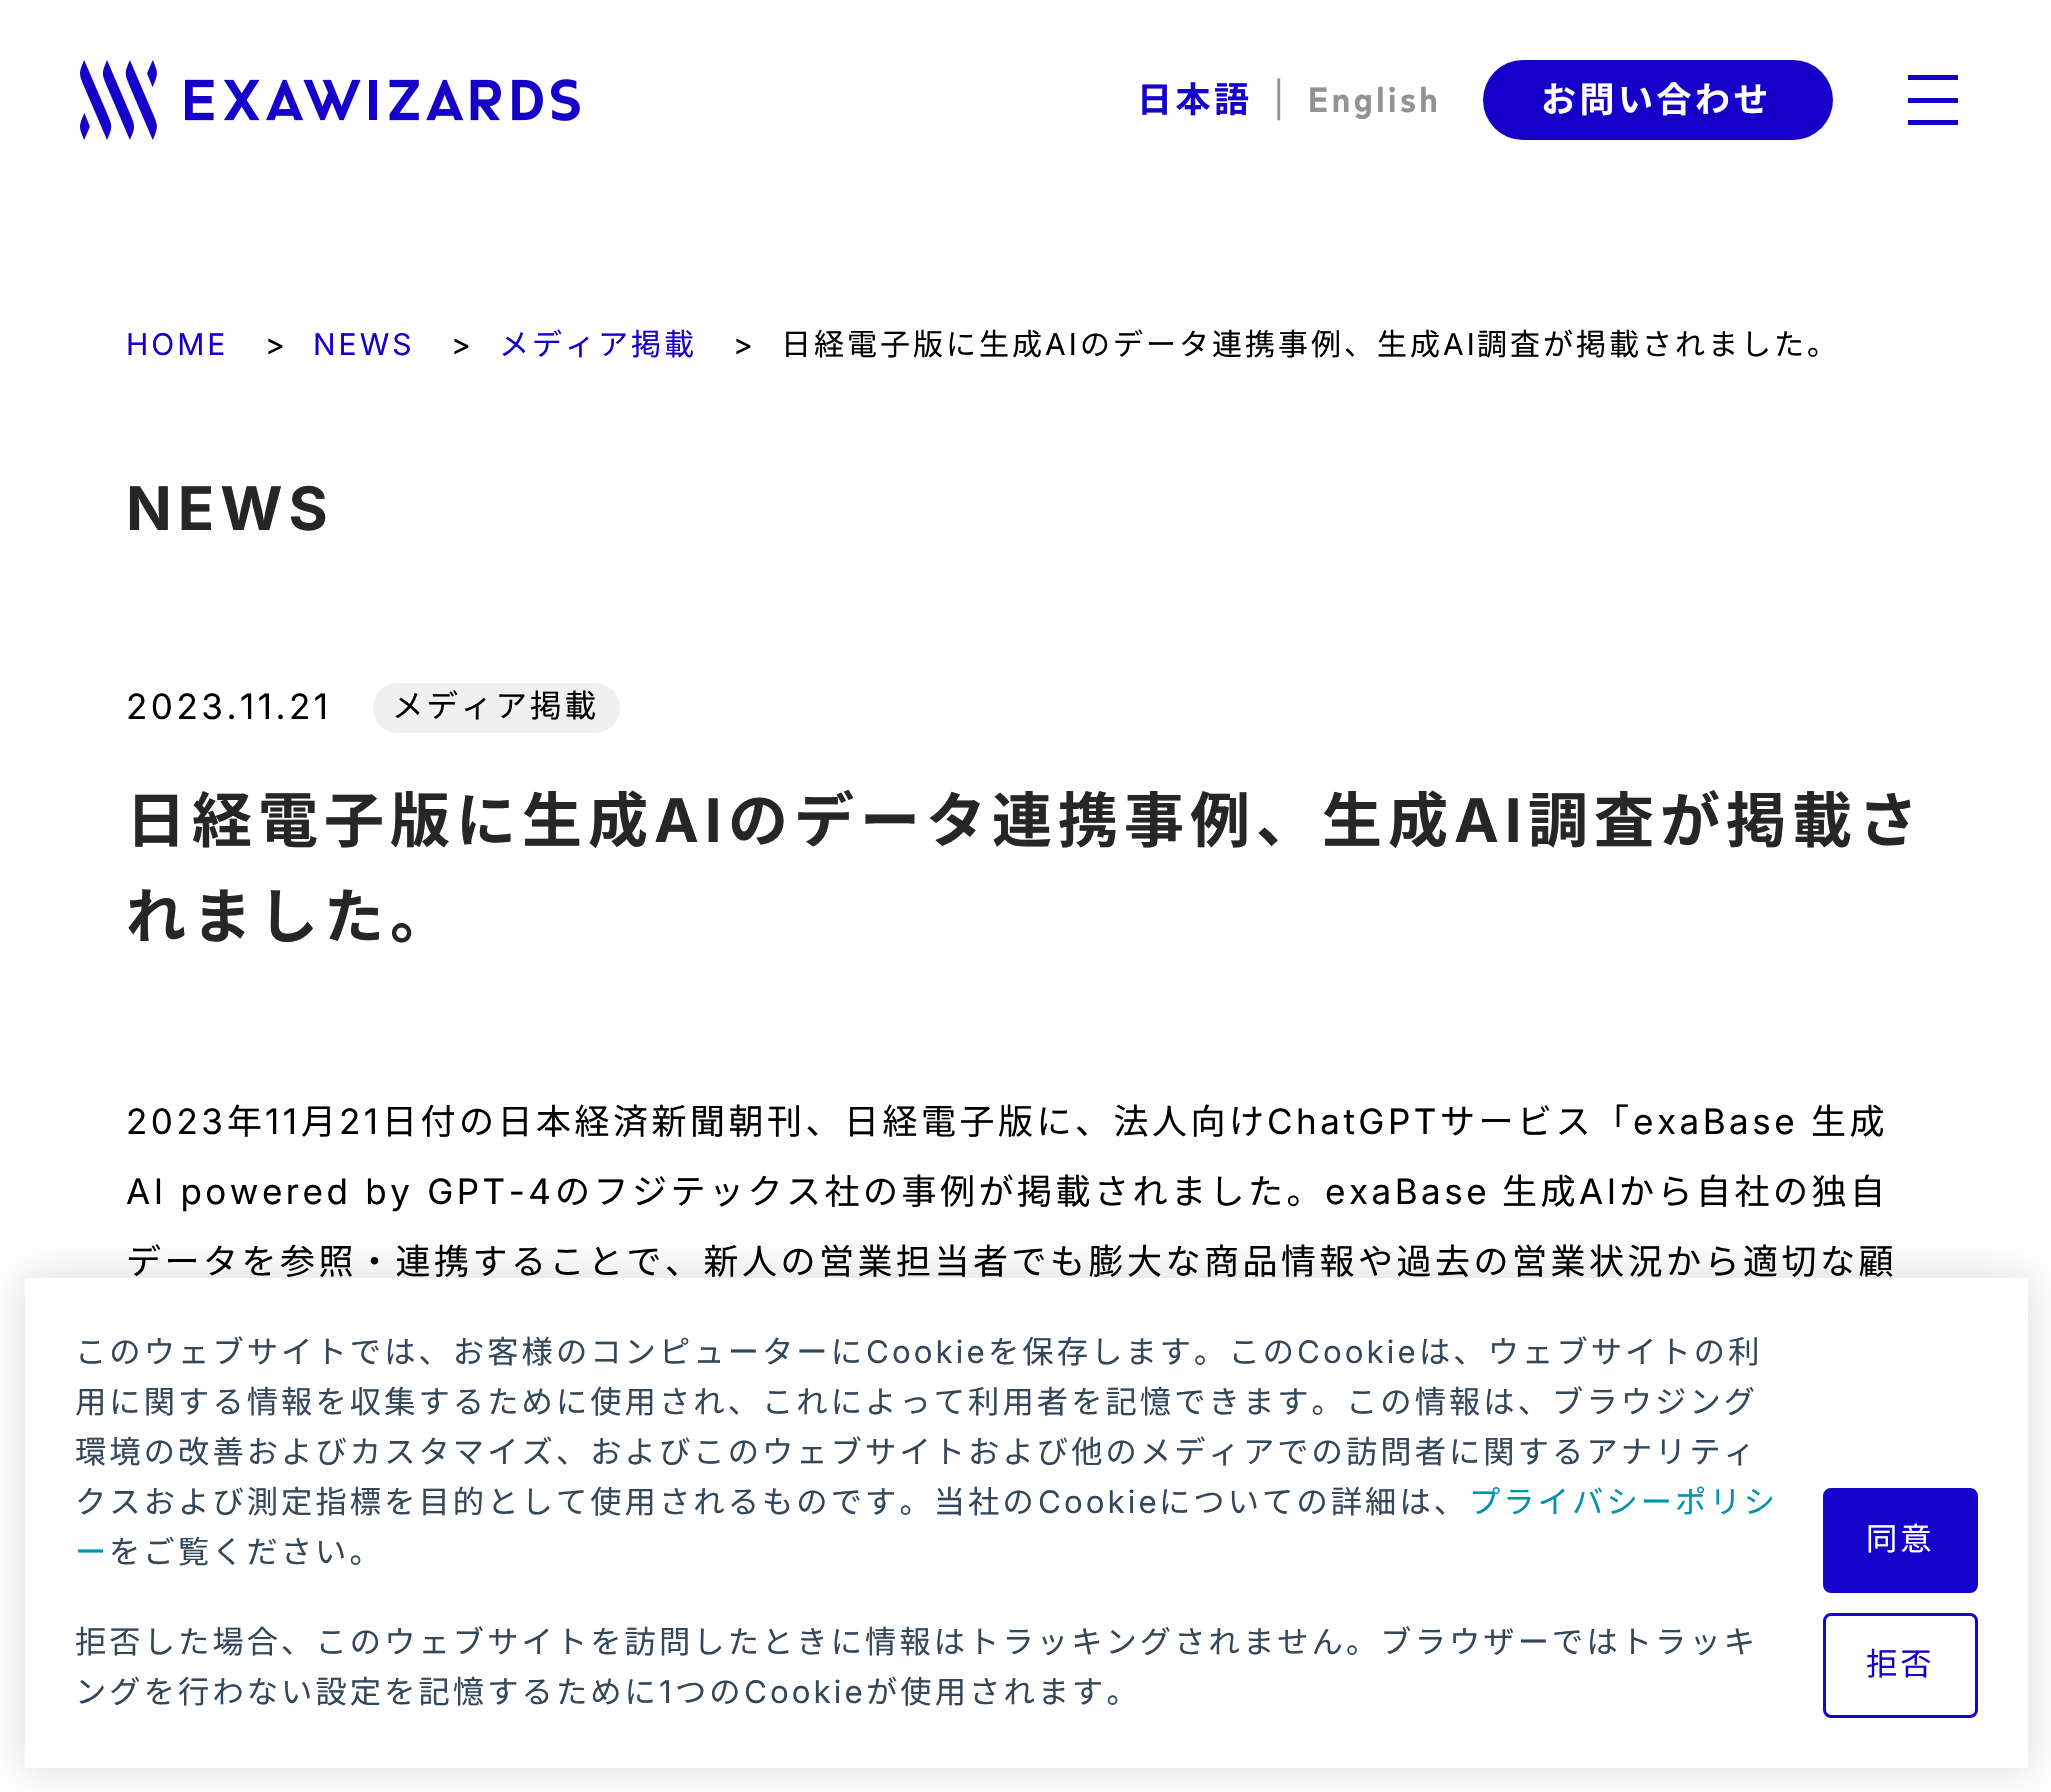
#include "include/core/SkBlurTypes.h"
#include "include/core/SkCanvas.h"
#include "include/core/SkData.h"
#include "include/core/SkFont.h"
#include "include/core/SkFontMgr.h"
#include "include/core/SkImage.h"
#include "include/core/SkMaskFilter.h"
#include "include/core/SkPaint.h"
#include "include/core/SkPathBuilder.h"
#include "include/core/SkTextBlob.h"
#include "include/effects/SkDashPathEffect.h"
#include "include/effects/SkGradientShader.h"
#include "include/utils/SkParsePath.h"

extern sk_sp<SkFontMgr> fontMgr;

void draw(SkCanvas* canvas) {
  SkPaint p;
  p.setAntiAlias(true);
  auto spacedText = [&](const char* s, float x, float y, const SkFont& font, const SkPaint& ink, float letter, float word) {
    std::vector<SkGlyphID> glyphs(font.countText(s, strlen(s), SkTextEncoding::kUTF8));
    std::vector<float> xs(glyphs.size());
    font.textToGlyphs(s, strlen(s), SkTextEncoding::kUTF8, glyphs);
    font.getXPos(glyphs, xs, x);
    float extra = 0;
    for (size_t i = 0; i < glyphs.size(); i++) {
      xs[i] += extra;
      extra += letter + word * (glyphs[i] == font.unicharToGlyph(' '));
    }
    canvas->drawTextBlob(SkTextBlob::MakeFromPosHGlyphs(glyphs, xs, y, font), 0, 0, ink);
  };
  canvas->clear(SK_ColorWHITE);
  canvas->drawImageRect(SkImages::DeferredFromEncodedData(SkData::MakeFromFileName("images/1.png")), SkRect::MakeLTRB(80, 60, 580, 140), SkSamplingOptions());
  p.setColor(SkColorSetRGB(20, 0, 200));
  canvas->drawRoundRect(SkRect::MakeLTRB(1483, 60, 1833, 140), 40, 40, p);
  canvas->drawRect(SkRect::MakeLTRB(1908, 75, 1958, 80), p);
  canvas->drawRect(SkRect::MakeLTRB(1908, 98, 1958, 103), p);
  canvas->drawRect(SkRect::MakeLTRB(1908, 120, 1958, 125), p);
  p.setColor(SkColorSetRGB(240, 240, 240));
  canvas->drawRoundRect(SkRect::MakeLTRB(373, 683, 620, 733), 25, 25, p);
  p.setColor(SkColorSetARGB(38, 0, 0, 0));
  p.setMaskFilter(SkMaskFilter::MakeBlur(kNormal_SkBlurStyle, 20));
  canvas->drawRect(SkRect::MakeLTRB(25, 1278, 2028, 1768), p);
  p.setMaskFilter(nullptr);
  p.setColor(SK_ColorWHITE);
  canvas->drawRect(SkRect::MakeLTRB(25, 1278, 2028, 1768), p);
  p.setColor(SkColorSetRGB(20, 4, 204));
  canvas->drawRoundRect(SkRect::MakeLTRB(1824.5f, 1489.5f, 1976.5f, 1591.5f), 6.5f, 6.5f, p);
  p.setStyle(SkPaint::kStroke_Style);
  p.setStrokeWidth(3);
  canvas->drawRoundRect(SkRect::MakeLTRB(1824.5f, 1489.5f, 1976.5f, 1591.5f), 6.5f, 6.5f, p);
  canvas->drawRoundRect(SkRect::MakeLTRB(1824.5f, 1614.5f, 1976.5f, 1716.5f), 6.5f, 6.5f, p);
  SkFont font1(fontMgr->matchFamilyStyle("Noto Sans JP", SkFontStyle::Bold()), 35);
  font1.setSubpixel(true);
  p.setStyle(SkPaint::kFill_Style);
  p.setColor(SkColorSetRGB(20, 0, 200));
  spacedText("日本語", 1137, 112, font1, p, 3.5f, 0);
  SkFont font2(fontMgr->matchFamilyStyle("Inter", SkFontStyle::Normal()), 35);
  font2.setSubpixel(true);
  p.setColor(SkColorSetRGB(145, 147, 148));
  spacedText("|", 1273, 112, font2, p, 3.5f, 0);
  SkFont font3(fontMgr->matchFamilyStyle("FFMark", SkFontStyle::Bold()), 35);
  font3.setSubpixel(true);
  spacedText("English", 1308, 112, font3, p, 3.5f, 0);
  p.setColor(SK_ColorWHITE);
  spacedText("お問い合わせ", 1541, 112, font1, p, 3.5f, 0);
  SkFont font4(fontMgr->matchFamilyStyle("Inter", SkFontStyle::Normal()), 30);
  font4.setSubpixel(true);
  p.setColor(SkColorSetRGB(20, 0, 200));
  spacedText("HOME", 126, 355, font4, p, 3, 0);
  p.setColor(SK_ColorBLACK);
  spacedText(">", 265, 355, font4, p, 3, 0);
  p.setColor(SkColorSetRGB(20, 0, 200));
  spacedText("NEWS", 313, 355, font4, p, 3, 0);
  p.setColor(SK_ColorBLACK);
  spacedText(">", 451, 355, font4, p, 3, 0);
  SkFont font5(fontMgr->matchFamilyStyle("Noto Sans JP", SkFontStyle::Normal()), 30);
  font5.setSubpixel(true);
  p.setColor(SkColorSetRGB(20, 0, 200));
  spacedText("メディア掲載", 499, 355, font5, p, 3, 0);
  p.setColor(SK_ColorBLACK);
  spacedText(">", 733, 355, font4, p, 3, 0);
  spacedText("日経電子版に生成", 781, 355, font5, p, 3, 0);
  spacedText("AI", 1045, 355, font4, p, 3, 0);
  spacedText("のデータ連携事例、生成", 1080, 355, font5, p, 3, 0);
  spacedText("AI", 1443, 355, font4, p, 3, 0);
  spacedText("調査が掲載されました。", 1477, 355, font5, p, 3, 0);
  SkFont font6(fontMgr->matchFamilyStyle("Inter", SkFontStyle::Bold()), 60);
  font6.setSubpixel(true);
  p.setColor(SkColorSetRGB(38, 38, 38));
  spacedText("NEWS", 126, 530, font6, p, 6, 0);
  p.setColor(SK_ColorBLACK);
  spacedText("2023.11.21", 126, 719, font2, p, 3.5f, 0);
  SkFont font7(fontMgr->matchFamilyStyle("Noto Sans JP", SkFontStyle::Normal()), 31.5f);
  font7.setSubpixel(true);
  spacedText("メディア掲載", 392, 717, font7, p, 3, 0);
  SkFont font8(fontMgr->matchFamilyStyle("Noto Sans JP", SkFontStyle::Bold()), 60);
  font8.setSubpixel(true);
  p.setColor(SkColorSetRGB(38, 38, 38));
  spacedText("日経電子版に生成", 126, 842, font8, p, 6, 0);
  spacedText("AI", 654, 842, font6, p, 6, 0);
  spacedText("のデータ連携事例、生成", 728, 842, font8, p, 6, 0);
  spacedText("AI", 1454, 842, font6, p, 6, 0);
  spacedText("調査が掲載さ", 1528, 842, font8, p, 6, 0);
  spacedText("れました。", 126, 938, font8, p, 6, 0);
  p.setColor(SK_ColorBLACK);
  spacedText("2023", 126, 1134, font2, p, 3.5f, 0);
  SkFont font9(fontMgr->matchFamilyStyle("Noto Sans JP", SkFontStyle::Normal()), 35);
  font9.setSubpixel(true);
  spacedText("年", 227, 1134, font9, p, 3.5f, 0);
  spacedText("11", 265, 1134, font2, p, 3.5f, 0);
  spacedText("月", 301, 1134, font9, p, 3.5f, 0);
  spacedText("21", 339, 1134, font2, p, 3.5f, 0);
  spacedText("日付の日本経済新聞朝刊、日経電子版に、法人向け", 382, 1134, font9, p, 3.5f, 0);
  spacedText("ChatGPT", 1267, 1134, font2, p, 3.5f, 0);
  spacedText("サービス「", 1440, 1134, font9, p, 3.5f, 0);
  spacedText("exaBase", 1633, 1134, font2, p, 3.5f, 0);
  spacedText("生成", 1811, 1134, font9, p, 3.5f, 0);
  spacedText("AI powered by GPT-4", 126, 1204, font2, p, 3.5f, 0.5f);
  spacedText("のフジテックス社の事例が掲載されました。", 555, 1204, font9, p, 3.5f, 0);
  spacedText("exaBase", 1325, 1204, font2, p, 3.5f, 0);
  spacedText("生成", 1502, 1204, font9, p, 3.5f, 0);
  spacedText("AI", 1579, 1204, font2, p, 3.5f, 0);
  spacedText("から自社の独自", 1619, 1204, font9, p, 3.5f, 0);
  spacedText("データを参照・連携することで、新人の営業担当者でも膨大な商品情報や過去の営業状況から適切な顧", 126, 1274, font9, p, 3.5f, 0);
  SkFont font10(fontMgr->matchFamilyStyle("Noto Sans JP", SkFontStyle::Normal()), 31.25f);
  font10.setSubpixel(true);
  p.setColor(SkColorSetRGB(51, 71, 91));
  spacedText("このウェブサイトでは、お客様のコンピューターに", 75, 1363, font10, p, 3.1f, 0);
  SkFont font11(fontMgr->matchFamilyStyle("Inter", SkFontStyle::Normal()), 31.25f);
  font11.setSubpixel(true);
  spacedText("Cookie", 866, 1363, font11, p, 3.1f, 0);
  spacedText("を保存します。この", 988, 1363, font10, p, 3.1f, 0);
  spacedText("Cookie", 1297, 1363, font11, p, 3.1f, 0);
  spacedText("は、ウェブサイトの利", 1419, 1363, font10, p, 3.1f, 0);
  spacedText("用に関する情報を収集するために使用され、これによって利用者を記憶できます。この情報は、ブラウジング", 75, 1413, font10, p, 3.1f, 0);
  spacedText("環境の改善およびカスタマイズ、およびこのウェブサイトおよび他のメディアでの訪問者に関するアナリティ", 75, 1463, font10, p, 3.1f, 0);
  spacedText("クスおよび測定指標を目的として使用されるものです。当社の", 75, 1513, font10, p, 3.1f, 0);
  spacedText("Cookie", 1038, 1513, font11, p, 3.1f, 0);
  spacedText("についての詳細は、", 1159, 1513, font10, p, 3.1f, 0);
  p.setColor(SkColorSetRGB(0, 145, 174));
  spacedText("プライバシーポリシ", 1469, 1513, font10, p, 3.1f, 0);
  spacedText("ー", 75, 1563, font10, p, 3.1f, 0);
  p.setColor(SkColorSetRGB(51, 71, 91));
  spacedText("をご覧ください。", 109, 1563, font10, p, 3.1f, 0);
  spacedText("拒否した場合、このウェブサイトを訪問したときに情報はトラッキングされません。ブラウザーではトラッキ", 75, 1653, font10, p, 3.1f, 0);
  spacedText("ングを行わない設定を記憶するために", 75, 1703, font10, p, 3.1f, 0);
  spacedText("1", 659, 1703, font11, p, 3.1f, 0);
  spacedText("つの", 675, 1703, font10, p, 3.1f, 0);
  spacedText("Cookie", 744, 1703, font11, p, 3.1f, 0);
  spacedText("が使用されます。", 866, 1703, font10, p, 3.1f, 0);
  p.setColor(SK_ColorWHITE);
  spacedText("同意", 1866, 1550, font10, p, 3.1f, 0);
  p.setColor(SkColorSetRGB(20, 0, 200));
  spacedText("拒否", 1866, 1675, font10, p, 3.1f, 0);
}
